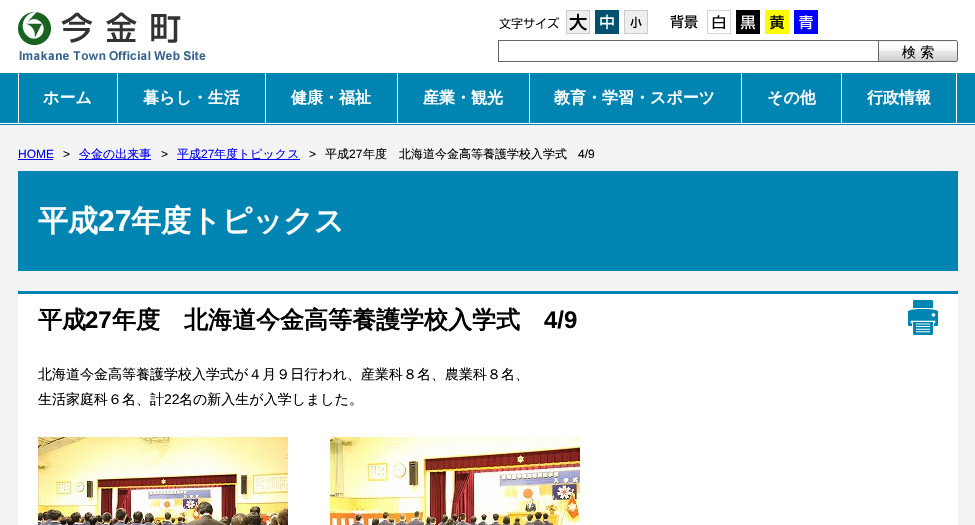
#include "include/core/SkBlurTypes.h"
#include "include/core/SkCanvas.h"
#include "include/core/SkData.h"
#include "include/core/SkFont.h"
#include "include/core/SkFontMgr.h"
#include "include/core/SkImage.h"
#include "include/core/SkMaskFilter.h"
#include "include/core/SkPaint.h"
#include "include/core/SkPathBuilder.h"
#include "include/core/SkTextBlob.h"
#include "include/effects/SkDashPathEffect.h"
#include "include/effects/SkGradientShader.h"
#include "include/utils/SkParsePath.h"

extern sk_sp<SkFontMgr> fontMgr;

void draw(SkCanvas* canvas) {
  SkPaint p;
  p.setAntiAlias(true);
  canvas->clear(SK_ColorWHITE);
  canvas->drawImageRect(SkImages::DeferredFromEncodedData(SkData::MakeFromFileName("images/1.png")), SkRect::MakeLTRB(18, 12, 206, 61), SkSamplingOptions());
  canvas->drawImageRect(SkImages::DeferredFromEncodedData(SkData::MakeFromFileName("images/2.png")), SkRect::MakeLTRB(499, 17, 559, 29), SkSamplingOptions());
  canvas->drawImageRect(SkImages::DeferredFromEncodedData(SkData::MakeFromFileName("images/3.png")), SkRect::MakeLTRB(566, 10, 590, 34), SkSamplingOptions());
  canvas->drawImageRect(SkImages::DeferredFromEncodedData(SkData::MakeFromFileName("images/4.png")), SkRect::MakeLTRB(595, 10, 619, 34), SkSamplingOptions());
  canvas->drawImageRect(SkImages::DeferredFromEncodedData(SkData::MakeFromFileName("images/5.png")), SkRect::MakeLTRB(624, 10, 648, 34), SkSamplingOptions());
  canvas->drawImageRect(SkImages::DeferredFromEncodedData(SkData::MakeFromFileName("images/6.png")), SkRect::MakeLTRB(670, 15, 698, 29), SkSamplingOptions());
  canvas->drawImageRect(SkImages::DeferredFromEncodedData(SkData::MakeFromFileName("images/7.png")), SkRect::MakeLTRB(707, 10, 731, 34), SkSamplingOptions());
  canvas->drawImageRect(SkImages::DeferredFromEncodedData(SkData::MakeFromFileName("images/8.png")), SkRect::MakeLTRB(736, 10, 760, 34), SkSamplingOptions());
  canvas->drawImageRect(SkImages::DeferredFromEncodedData(SkData::MakeFromFileName("images/9.png")), SkRect::MakeLTRB(765, 10, 789, 34), SkSamplingOptions());
  canvas->drawImageRect(SkImages::DeferredFromEncodedData(SkData::MakeFromFileName("images/10.png")), SkRect::MakeLTRB(794, 10, 818, 34), SkSamplingOptions());
  p.setColor(SkColorSetRGB(102, 102, 102));
  canvas->drawRect(SkRect::MakeLTRB(498, 40, 882, 41), p);
  canvas->drawRect(SkRect::MakeLTRB(498, 61, 882, 62), p);
  canvas->drawRect(SkRect::MakeLTRB(498, 40, 499, 62), p);
  canvas->drawImageRect(SkImages::DeferredFromEncodedData(SkData::MakeFromFileName("images/11.png")), SkRect::MakeLTRB(879, 41, 958, 62), SkSamplingOptions());
  p.setStyle(SkPaint::kStroke_Style);
  p.setStrokeWidth(1);
  canvas->drawPath(SkPathBuilder().moveTo(878.5f, 40.5f).lineTo(956, 40.5f).cubicTo(957, 40.5f, 957.5f, 41, 957.5f, 42).lineTo(957.5f, 60).cubicTo(957.5f, 61, 957, 61.5f, 956, 61.5f).lineTo(878.5f, 61.5f).close().detach(), p);
  p.setStyle(SkPaint::kFill_Style);
  p.setColor(SkColorSetRGB(0, 133, 178));
  canvas->drawRect(SkRect::MakeLTRB(0, 73, 975, 123), p);
  p.setColor(SK_ColorWHITE);
  canvas->drawRect(SkRect::MakeLTRB(117, 73, 118, 123), p);
  canvas->drawRect(SkRect::MakeLTRB(18, 73, 19, 123), p);
  canvas->drawRect(SkRect::MakeLTRB(265, 73, 266, 123), p);
  canvas->drawRect(SkRect::MakeLTRB(397, 73, 398, 123), p);
  canvas->drawRect(SkRect::MakeLTRB(529, 73, 530, 123), p);
  canvas->drawRect(SkRect::MakeLTRB(741, 73, 742, 123), p);
  canvas->drawRect(SkRect::MakeLTRB(841, 73, 842, 123), p);
  canvas->drawRect(SkRect::MakeLTRB(956, 73, 957, 123), p);
  p.setColor(SkColorSetRGB(243, 243, 243));
  canvas->drawRect(SkRect::MakeLTRB(0, 125, 975, 525), p);
  p.setColor(SkColorSetRGB(0, 133, 178));
  canvas->drawRect(SkRect::MakeLTRB(0, 124, 975, 125), p);
  p.setColor(SkColorSetRGB(0, 0, 238));
  canvas->drawRect(SkRect::MakeLTRB(18, 159, 53, 160), p);
  canvas->drawRect(SkRect::MakeLTRB(79, 159, 151, 160), p);
  canvas->drawRect(SkRect::MakeLTRB(177, 159, 300, 160), p);
  p.setColor(SkColorSetRGB(0, 133, 178));
  canvas->drawRect(SkRect::MakeLTRB(18, 171, 958, 271), p);
  p.setColor(SK_ColorWHITE);
  canvas->drawRect(SkRect::MakeLTRB(18, 294, 958, 525), p);
  p.setColor(SkColorSetRGB(0, 133, 178));
  canvas->drawRect(SkRect::MakeLTRB(18, 291, 958, 294), p);
  canvas->drawImageRect(SkImages::DeferredFromEncodedData(SkData::MakeFromFileName("images/12.png")), SkRect::MakeLTRB(908, 300, 938, 335), SkSamplingOptions());
  canvas->drawImageRect(SkImages::DeferredFromEncodedData(SkData::MakeFromFileName("images/13.png")), SkRect::MakeLTRB(38, 437, 288, 525), SkSamplingOptions());
  canvas->drawImageRect(SkImages::DeferredFromEncodedData(SkData::MakeFromFileName("images/14.png")), SkRect::MakeLTRB(330, 437, 580, 525), SkSamplingOptions());
  SkFont font1(fontMgr->matchFamilyStyle("WenQuanYi Zen Hei", SkFontStyle(500, SkFontStyle::kNormal_Width, SkFontStyle::kUpright_Slant)), 14);
  font1.setSubpixel(true);
  p.setColor(SK_ColorBLACK);
  canvas->drawString("検 索", 902, 57, font1, p);
  SkFont font2(fontMgr->matchFamilyStyle("WenQuanYi Zen Hei", SkFontStyle::Bold()), 16);
  font2.setSubpixel(true);
  p.setColor(SK_ColorWHITE);
  canvas->drawString("ホーム", 43, 103, font2, p);
  canvas->drawString("暮らし・生活", 143, 103, font2, p);
  canvas->drawString("健康・福祉", 291, 103, font2, p);
  canvas->drawString("産業・観光", 423, 103, font2, p);
  canvas->drawString("教育・学習・スポーツ", 554, 103, font2, p);
  canvas->drawString("その他", 767, 103, font2, p);
  canvas->drawString("行政情報", 867, 103, font2, p);
  SkFont font3(fontMgr->matchFamilyStyle("Liberation Sans", SkFontStyle::Normal()), 12);
  font3.setSubpixel(true);
  p.setColor(SkColorSetRGB(0, 0, 238));
  canvas->drawString("HOME", 18, 158, font3, p);
  p.setColor(SK_ColorBLACK);
  canvas->drawString(">", 63, 158, font3, p);
  SkFont font4(fontMgr->matchFamilyStyle("WenQuanYi Zen Hei", SkFontStyle(500, SkFontStyle::kNormal_Width, SkFontStyle::kUpright_Slant)), 12);
  font4.setSubpixel(true);
  p.setColor(SkColorSetRGB(0, 0, 238));
  canvas->drawString("今金の出来事", 79, 158, font4, p);
  p.setColor(SK_ColorBLACK);
  canvas->drawString(">", 161, 158, font3, p);
  p.setColor(SkColorSetRGB(0, 0, 238));
  canvas->drawString("平成", 177, 158, font4, p);
  canvas->drawString("27", 201, 158, font3, p);
  canvas->drawString("年度トピックス", 214, 158, font4, p);
  p.setColor(SK_ColorBLACK);
  canvas->drawString(">", 309, 158, font3, p);
  canvas->drawString("平成", 325, 158, font4, p);
  canvas->drawString("27", 349, 158, font3, p);
  canvas->drawString("年度　北海道今金高等養護学校入学式", 363, 158, font4, p);
  canvas->drawString("4/9", 578, 158, font3, p);
  SkFont font5(fontMgr->matchFamilyStyle("WenQuanYi Zen Hei", SkFontStyle::Bold()), 30);
  font5.setSubpixel(true);
  p.setColor(SK_ColorWHITE);
  canvas->drawString("平成", 38, 231, font5, p);
  SkFont font6(fontMgr->matchFamilyStyle("Liberation Sans", SkFontStyle::Bold()), 30);
  font6.setSubpixel(true);
  canvas->drawString("27", 98, 231, font6, p);
  canvas->drawString("年度トピックス", 131, 231, font5, p);
  SkFont font7(fontMgr->matchFamilyStyle("WenQuanYi Zen Hei", SkFontStyle::Bold()), 24);
  font7.setSubpixel(true);
  p.setColor(SK_ColorBLACK);
  canvas->drawString("平成", 38, 328, font7, p);
  SkFont font8(fontMgr->matchFamilyStyle("Liberation Sans", SkFontStyle::Bold()), 24);
  font8.setSubpixel(true);
  canvas->drawString("27", 85, 328, font8, p);
  canvas->drawString("年度　北海道今金高等養護学校入学式", 112, 328, font7, p);
  canvas->drawString("4/9", 544, 328, font8, p);
  canvas->drawString("北海道今金高等養護学校入学式が４月９日行われ、産業科８名、農業科８名、", 38, 379, font1, p);
  canvas->drawString("生活家庭科６名、計", 38, 404, font1, p);
  SkFont font9(fontMgr->matchFamilyStyle("Liberation Sans", SkFontStyle::Normal()), 14);
  font9.setSubpixel(true);
  canvas->drawString("22", 164, 404, font9, p);
  canvas->drawString("名の新入生が入学しました。", 179, 404, font1, p);
}
